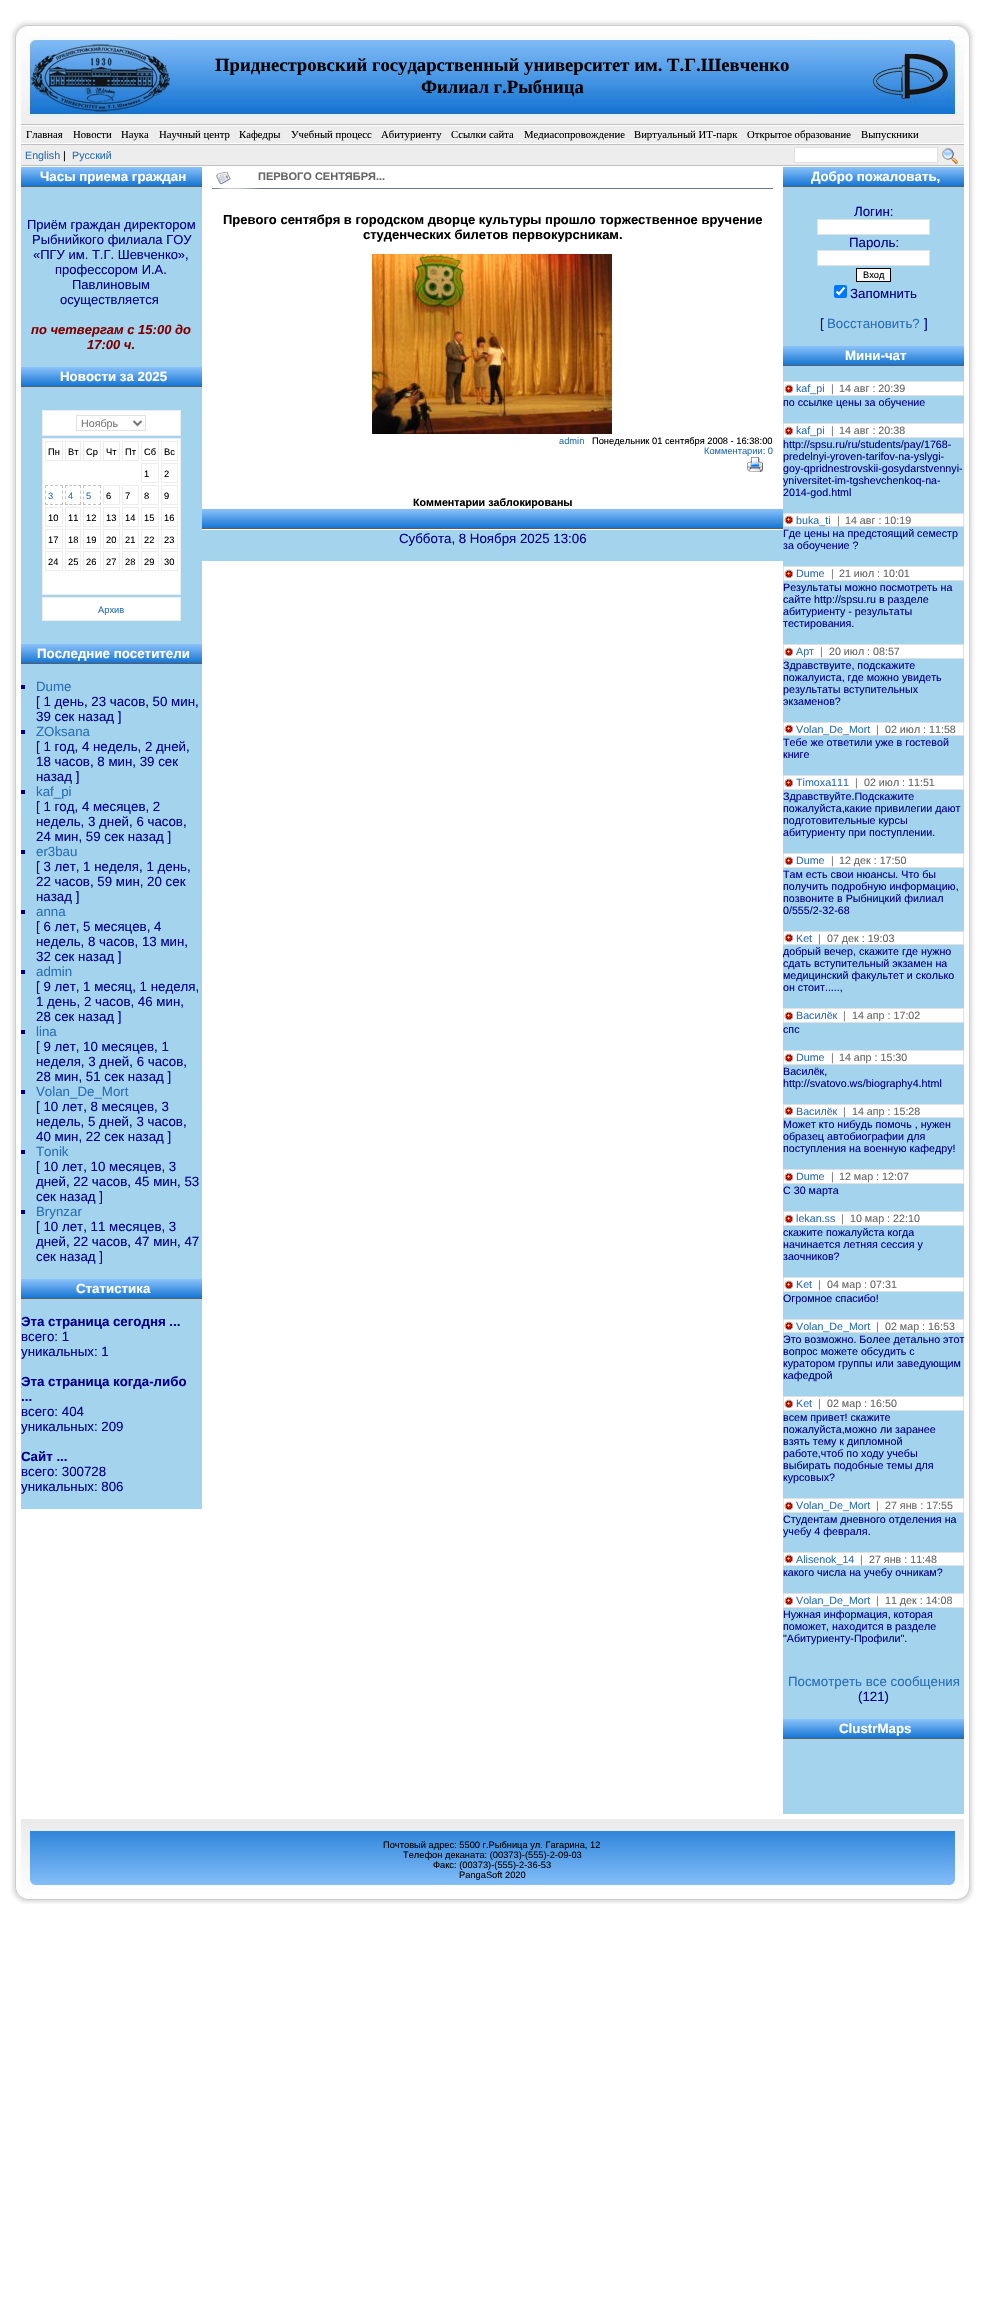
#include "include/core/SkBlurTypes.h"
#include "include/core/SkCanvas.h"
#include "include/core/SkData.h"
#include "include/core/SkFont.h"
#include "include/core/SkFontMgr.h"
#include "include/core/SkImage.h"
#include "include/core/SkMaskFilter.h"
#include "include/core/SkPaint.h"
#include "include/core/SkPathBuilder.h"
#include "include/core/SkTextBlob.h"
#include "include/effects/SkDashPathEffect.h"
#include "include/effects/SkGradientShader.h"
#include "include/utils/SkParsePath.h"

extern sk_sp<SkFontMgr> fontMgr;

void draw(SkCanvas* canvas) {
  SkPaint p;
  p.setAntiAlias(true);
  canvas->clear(SK_ColorWHITE);
  canvas->drawImageRect(SkImages::DeferredFromEncodedData(SkData::MakeFromFileName("images/1.png")), SkRect::MakeLTRB(10, 20, 170, 126), SkSamplingOptions());
  canvas->drawImageRect(SkImages::DeferredFromEncodedData(SkData::MakeFromFileName("images/2.png")), SkRect::MakeLTRB(170, 20, 812, 125), SkSamplingOptions());
  canvas->drawImageRect(SkImages::DeferredFromEncodedData(SkData::MakeFromFileName("images/3.png")), SkRect::MakeLTRB(812, 20, 815, 125), SkSamplingOptions());
  canvas->drawImageRect(SkImages::DeferredFromEncodedData(SkData::MakeFromFileName("images/4.png")), SkRect::MakeLTRB(815, 20, 975, 126), SkSamplingOptions());
  canvas->drawImageRect(SkImages::DeferredFromEncodedData(SkData::MakeFromFileName("images/5.png")), SkRect::MakeLTRB(10, 126, 16, 144), SkSamplingOptions());
  p.setColor(SkColorSetRGB(237, 237, 237));
  canvas->drawRect(SkRect::MakeLTRB(21, 126, 964, 143), p);
  canvas->drawImageRect(SkImages::DeferredFromEncodedData(SkData::MakeFromFileName("images/6.png")), SkRect::MakeLTRB(969, 126, 975, 144), SkSamplingOptions());
  canvas->drawImageRect(SkImages::DeferredFromEncodedData(SkData::MakeFromFileName("images/7.png")), SkRect::MakeLTRB(10, 144, 16, 166), SkSamplingOptions());
  canvas->drawRect(SkRect::MakeLTRB(21, 145, 964, 165), p);
  p.setColor(SkColorSetRGB(192, 192, 192));
  canvas->drawRect(SkRect::MakeLTRB(21, 144, 964, 145), p);
  canvas->drawRect(SkRect::MakeLTRB(21, 165, 964, 166), p);
  p.setColor(SK_ColorWHITE);
  canvas->drawRect(SkRect::MakeLTRB(794.5f, 147.5f, 937.5f, 162.5f), p);
  p.setStyle(SkPaint::kStroke_Style);
  p.setStrokeWidth(1);
  p.setColor(SkColorSetRGB(225, 225, 225));
  canvas->drawRect(SkRect::MakeLTRB(794.5f, 147.5f, 937.5f, 162.5f), p);
  canvas->drawImageRect(SkImages::DeferredFromEncodedData(SkData::MakeFromFileName("images/8.png")), SkRect::MakeLTRB(942, 148, 958, 164), SkSamplingOptions());
  canvas->drawImageRect(SkImages::DeferredFromEncodedData(SkData::MakeFromFileName("images/9.png")), SkRect::MakeLTRB(969, 144, 975, 166), SkSamplingOptions());
  canvas->drawImageRect(SkImages::DeferredFromEncodedData(SkData::MakeFromFileName("images/10.png")), SkRect::MakeLTRB(10, 166, 16, 1814), SkSamplingOptions());
  p.setStyle(SkPaint::kFill_Style);
  p.setColor(SkColorSetRGB(164, 211, 238));
  canvas->drawRect(SkRect::MakeLTRB(21, 187, 202, 1509), p);
  canvas->drawImageRect(SkImages::DeferredFromEncodedData(SkData::MakeFromFileName("images/11.png")), SkRect::MakeLTRB(21, 167, 202, 187), SkSamplingOptions());
  canvas->drawImageRect(SkImages::DeferredFromEncodedData(SkData::MakeFromFileName("images/11.png")), SkRect::MakeLTRB(21, 367, 202, 387), SkSamplingOptions());
  p.setColor(SK_ColorWHITE);
  canvas->drawRect(SkRect::MakeLTRB(42.5f, 410.5f, 180.5f, 435.5f), p);
  p.setStyle(SkPaint::kStroke_Style);
  p.setColor(SkColorSetRGB(237, 237, 237));
  canvas->drawRect(SkRect::MakeLTRB(42.5f, 410.5f, 180.5f, 435.5f), p);
  p.setColor(SkColorSetRGB(225, 225, 225));
  canvas->drawRect(SkRect::MakeLTRB(76.5f, 415.5f, 145.5f, 430.5f), p);
  p.setStrokeWidth(2);
  p.setColor(SkColorSetRGB(119, 119, 119));
  canvas->drawPath(SkPathBuilder().moveTo(133.5f, 421).lineTo(137.5f, 425).lineTo(141.5f, 421).detach(), p);
  p.setStyle(SkPaint::kFill_Style);
  p.setColor(SK_ColorWHITE);
  canvas->drawRect(SkRect::MakeLTRB(42.5f, 438.5f, 180.5f, 594.5f), p);
  p.setStyle(SkPaint::kStroke_Style);
  p.setStrokeWidth(1);
  p.setColor(SkColorSetRGB(237, 237, 237));
  canvas->drawRect(SkRect::MakeLTRB(42.5f, 438.5f, 180.5f, 594.5f), p);
  canvas->drawRect(SkRect::MakeLTRB(45.5f, 441.5f, 62.5f, 460.5f), p);
  canvas->drawRect(SkRect::MakeLTRB(65.5f, 441.5f, 80.5f, 460.5f), p);
  canvas->drawRect(SkRect::MakeLTRB(83.5f, 441.5f, 100.5f, 460.5f), p);
  canvas->drawRect(SkRect::MakeLTRB(103.5f, 441.5f, 119.5f, 460.5f), p);
  canvas->drawRect(SkRect::MakeLTRB(122.5f, 441.5f, 138.5f, 460.5f), p);
  canvas->drawRect(SkRect::MakeLTRB(141.5f, 441.5f, 158.5f, 460.5f), p);
  canvas->drawRect(SkRect::MakeLTRB(161.5f, 441.5f, 177.5f, 460.5f), p);
  canvas->drawRect(SkRect::MakeLTRB(141.5f, 463.5f, 158.5f, 482.5f), p);
  canvas->drawRect(SkRect::MakeLTRB(161.5f, 463.5f, 177.5f, 482.5f), p);
  p.setColor(SkColorSetRGB(195, 195, 195));
  p.setPathEffect(SkDashPathEffect::Make({{3, 2}}, 0));
  canvas->drawPath(SkPathBuilder().moveTo(45, 485.5f).lineTo(63, 485.5f).detach(), p);
  p.setPathEffect(nullptr);
  p.setPathEffect(SkDashPathEffect::Make({{3, 2.67f}}, 0));
  canvas->drawPath(SkPathBuilder().moveTo(62.5f, 485).lineTo(62.5f, 505).detach(), p);
  p.setPathEffect(nullptr);
  p.setPathEffect(SkDashPathEffect::Make({{3, 2}}, 0));
  canvas->drawPath(SkPathBuilder().moveTo(45, 504.5f).lineTo(63, 504.5f).detach(), p);
  p.setPathEffect(nullptr);
  p.setPathEffect(SkDashPathEffect::Make({{3, 2.67f}}, 0));
  canvas->drawPath(SkPathBuilder().moveTo(45.5f, 485).lineTo(45.5f, 505).detach(), p);
  p.setPathEffect(nullptr);
  p.setPathEffect(SkDashPathEffect::Make({{3, 1.33f}}, 0));
  canvas->drawPath(SkPathBuilder().moveTo(65, 485.5f).lineTo(81, 485.5f).detach(), p);
  p.setPathEffect(nullptr);
  p.setPathEffect(SkDashPathEffect::Make({{3, 2.67f}}, 0));
  canvas->drawPath(SkPathBuilder().moveTo(80.5f, 485).lineTo(80.5f, 505).detach(), p);
  p.setPathEffect(nullptr);
  p.setPathEffect(SkDashPathEffect::Make({{3, 1.33f}}, 0));
  canvas->drawPath(SkPathBuilder().moveTo(65, 504.5f).lineTo(81, 504.5f).detach(), p);
  p.setPathEffect(nullptr);
  p.setPathEffect(SkDashPathEffect::Make({{3, 2.67f}}, 0));
  canvas->drawPath(SkPathBuilder().moveTo(65.5f, 485).lineTo(65.5f, 505).detach(), p);
  p.setPathEffect(nullptr);
  p.setPathEffect(SkDashPathEffect::Make({{3, 2}}, 0));
  canvas->drawPath(SkPathBuilder().moveTo(83, 485.5f).lineTo(101, 485.5f).detach(), p);
  p.setPathEffect(nullptr);
  p.setPathEffect(SkDashPathEffect::Make({{3, 2.67f}}, 0));
  canvas->drawPath(SkPathBuilder().moveTo(100.5f, 485).lineTo(100.5f, 505).detach(), p);
  p.setPathEffect(nullptr);
  p.setPathEffect(SkDashPathEffect::Make({{3, 2}}, 0));
  canvas->drawPath(SkPathBuilder().moveTo(83, 504.5f).lineTo(101, 504.5f).detach(), p);
  p.setPathEffect(nullptr);
  p.setPathEffect(SkDashPathEffect::Make({{3, 2.67f}}, 0));
  canvas->drawPath(SkPathBuilder().moveTo(83.5f, 485).lineTo(83.5f, 505).detach(), p);
  p.setPathEffect(nullptr);
  p.setColor(SkColorSetRGB(237, 237, 237));
  canvas->drawRect(SkRect::MakeLTRB(103.5f, 485.5f, 119.5f, 504.5f), p);
  canvas->drawRect(SkRect::MakeLTRB(122.5f, 485.5f, 138.5f, 504.5f), p);
  canvas->drawRect(SkRect::MakeLTRB(141.5f, 485.5f, 158.5f, 504.5f), p);
  canvas->drawRect(SkRect::MakeLTRB(161.5f, 485.5f, 177.5f, 504.5f), p);
  canvas->drawRect(SkRect::MakeLTRB(45.5f, 507.5f, 62.5f, 526.5f), p);
  canvas->drawRect(SkRect::MakeLTRB(65.5f, 507.5f, 80.5f, 526.5f), p);
  canvas->drawRect(SkRect::MakeLTRB(83.5f, 507.5f, 100.5f, 526.5f), p);
  canvas->drawRect(SkRect::MakeLTRB(103.5f, 507.5f, 119.5f, 526.5f), p);
  canvas->drawRect(SkRect::MakeLTRB(122.5f, 507.5f, 138.5f, 526.5f), p);
  canvas->drawRect(SkRect::MakeLTRB(141.5f, 507.5f, 158.5f, 526.5f), p);
  canvas->drawRect(SkRect::MakeLTRB(161.5f, 507.5f, 177.5f, 526.5f), p);
  canvas->drawRect(SkRect::MakeLTRB(45.5f, 529.5f, 62.5f, 548.5f), p);
  canvas->drawRect(SkRect::MakeLTRB(65.5f, 529.5f, 80.5f, 548.5f), p);
  canvas->drawRect(SkRect::MakeLTRB(83.5f, 529.5f, 100.5f, 548.5f), p);
  canvas->drawRect(SkRect::MakeLTRB(103.5f, 529.5f, 119.5f, 548.5f), p);
  canvas->drawRect(SkRect::MakeLTRB(122.5f, 529.5f, 138.5f, 548.5f), p);
  canvas->drawRect(SkRect::MakeLTRB(141.5f, 529.5f, 158.5f, 548.5f), p);
  canvas->drawRect(SkRect::MakeLTRB(161.5f, 529.5f, 177.5f, 548.5f), p);
  canvas->drawRect(SkRect::MakeLTRB(45.5f, 551.5f, 62.5f, 570.5f), p);
  canvas->drawRect(SkRect::MakeLTRB(65.5f, 551.5f, 80.5f, 570.5f), p);
  canvas->drawRect(SkRect::MakeLTRB(83.5f, 551.5f, 100.5f, 570.5f), p);
  canvas->drawRect(SkRect::MakeLTRB(103.5f, 551.5f, 119.5f, 570.5f), p);
  canvas->drawRect(SkRect::MakeLTRB(122.5f, 551.5f, 138.5f, 570.5f), p);
  canvas->drawRect(SkRect::MakeLTRB(141.5f, 551.5f, 158.5f, 570.5f), p);
  canvas->drawRect(SkRect::MakeLTRB(161.5f, 551.5f, 177.5f, 570.5f), p);
  p.setStyle(SkPaint::kFill_Style);
  p.setColor(SK_ColorWHITE);
  canvas->drawRect(SkRect::MakeLTRB(42.5f, 597.5f, 180.5f, 620.5f), p);
  p.setStyle(SkPaint::kStroke_Style);
  p.setColor(SkColorSetRGB(237, 237, 237));
  canvas->drawRect(SkRect::MakeLTRB(42.5f, 597.5f, 180.5f, 620.5f), p);
  canvas->drawImageRect(SkImages::DeferredFromEncodedData(SkData::MakeFromFileName("images/11.png")), SkRect::MakeLTRB(21, 644, 202, 664), SkSamplingOptions());
  p.setStyle(SkPaint::kFill_Style);
  p.setColor(SkColorSetRGB(0, 0, 139));
  canvas->drawRect(SkRect::MakeLTRB(21, 685, 25, 689), p);
  canvas->drawRect(SkRect::MakeLTRB(21, 730, 25, 734), p);
  canvas->drawRect(SkRect::MakeLTRB(21, 790, 25, 794), p);
  canvas->drawRect(SkRect::MakeLTRB(21, 850, 25, 854), p);
  canvas->drawRect(SkRect::MakeLTRB(21, 910, 25, 914), p);
  canvas->drawRect(SkRect::MakeLTRB(21, 970, 25, 974), p);
  canvas->drawRect(SkRect::MakeLTRB(21, 1030, 25, 1034), p);
  canvas->drawRect(SkRect::MakeLTRB(21, 1090, 25, 1094), p);
  canvas->drawRect(SkRect::MakeLTRB(21, 1150, 25, 1154), p);
  canvas->drawRect(SkRect::MakeLTRB(21, 1210, 25, 1214), p);
  canvas->drawImageRect(SkImages::DeferredFromEncodedData(SkData::MakeFromFileName("images/11.png")), SkRect::MakeLTRB(21, 1279, 202, 1299), SkSamplingOptions());
  canvas->drawImageRect(SkImages::DeferredFromEncodedData(SkData::MakeFromFileName("images/12.png")), SkRect::MakeLTRB(212, 188, 773, 189), SkSamplingOptions());
  canvas->drawImageRect(SkImages::DeferredFromEncodedData(SkData::MakeFromFileName("images/13.png")), SkRect::MakeLTRB(216, 172, 231, 185), SkSamplingOptions());
  canvas->drawImageRect(SkImages::DeferredFromEncodedData(SkData::MakeFromFileName("images/14.png")), SkRect::MakeLTRB(372, 254, 612, 434), SkSamplingOptions());
  canvas->drawImageRect(SkImages::DeferredFromEncodedData(SkData::MakeFromFileName("images/15.png")), SkRect::MakeLTRB(747, 457, 763, 472), SkSamplingOptions());
  p.setColor(SkColorSetRGB(164, 211, 238));
  canvas->drawRect(SkRect::MakeLTRB(202, 530, 783, 561), p);
  canvas->drawImageRect(SkImages::DeferredFromEncodedData(SkData::MakeFromFileName("images/16.png")), SkRect::MakeLTRB(202, 509, 783, 530), SkSamplingOptions());
  canvas->drawRect(SkRect::MakeLTRB(783, 187, 964, 1814), p);
  canvas->drawImageRect(SkImages::DeferredFromEncodedData(SkData::MakeFromFileName("images/11.png")), SkRect::MakeLTRB(783, 167, 964, 187), SkSamplingOptions());
  p.setColor(SK_ColorWHITE);
  canvas->drawRect(SkRect::MakeLTRB(817.5f, 219.5f, 929.5f, 234.5f), p);
  p.setStyle(SkPaint::kStroke_Style);
  p.setColor(SkColorSetRGB(225, 225, 225));
  canvas->drawRect(SkRect::MakeLTRB(817.5f, 219.5f, 929.5f, 234.5f), p);
  p.setStyle(SkPaint::kFill_Style);
  p.setColor(SK_ColorWHITE);
  canvas->drawRect(SkRect::MakeLTRB(817.5f, 250.5f, 929.5f, 265.5f), p);
  p.setStyle(SkPaint::kStroke_Style);
  p.setColor(SkColorSetRGB(225, 225, 225));
  canvas->drawRect(SkRect::MakeLTRB(817.5f, 250.5f, 929.5f, 265.5f), p);
  canvas->drawImageRect(SkImages::DeferredFromEncodedData(SkData::MakeFromFileName("images/17.png")), SkRect::MakeLTRB(857, 269, 890, 281), SkSamplingOptions());
  p.setColor(SK_ColorBLACK);
  canvas->drawRect(SkRect::MakeLTRB(856.5f, 268.5f, 890.5f, 281.5f), p);
  p.setStyle(SkPaint::kFill_Style);
  p.setColor(SkColorSetRGB(0, 117, 255));
  canvas->drawRoundRect(SkRect::MakeLTRB(834, 285, 847, 298), 2, 2, p);
  p.setStyle(SkPaint::kStroke_Style);
  p.setStrokeWidth(2.1f);
  p.setColor(SK_ColorWHITE);
  canvas->drawPath(SkPathBuilder().moveTo(836.5f, 291.5f).lineTo(839, 294).lineTo(844.5f, 287.5f).detach(), p);
  canvas->drawImageRect(SkImages::DeferredFromEncodedData(SkData::MakeFromFileName("images/11.png")), SkRect::MakeLTRB(783, 346, 964, 366), SkSamplingOptions());
  p.setStyle(SkPaint::kFill_Style);
  canvas->drawRect(SkRect::MakeLTRB(783.5f, 381.5f, 963.5f, 395.5f), p);
  p.setStyle(SkPaint::kStroke_Style);
  p.setStrokeWidth(1);
  p.setColor(SkColorSetRGB(225, 225, 225));
  canvas->drawRect(SkRect::MakeLTRB(783.5f, 381.5f, 963.5f, 395.5f), p);
  canvas->drawImageRect(SkImages::DeferredFromEncodedData(SkData::MakeFromFileName("images/18.png")), SkRect::MakeLTRB(784, 384, 793, 393), SkSamplingOptions());
  p.setStyle(SkPaint::kFill_Style);
  p.setColor(SK_ColorWHITE);
  canvas->drawRect(SkRect::MakeLTRB(783.5f, 423.5f, 963.5f, 437.5f), p);
  p.setStyle(SkPaint::kStroke_Style);
  p.setColor(SkColorSetRGB(225, 225, 225));
  canvas->drawRect(SkRect::MakeLTRB(783.5f, 423.5f, 963.5f, 437.5f), p);
  canvas->drawImageRect(SkImages::DeferredFromEncodedData(SkData::MakeFromFileName("images/18.png")), SkRect::MakeLTRB(784, 426, 793, 435), SkSamplingOptions());
  p.setStyle(SkPaint::kFill_Style);
  p.setColor(SK_ColorWHITE);
  canvas->drawRect(SkRect::MakeLTRB(783.5f, 513.5f, 963.5f, 526.5f), p);
  p.setStyle(SkPaint::kStroke_Style);
  p.setColor(SkColorSetRGB(225, 225, 225));
  canvas->drawRect(SkRect::MakeLTRB(783.5f, 513.5f, 963.5f, 526.5f), p);
  canvas->drawImageRect(SkImages::DeferredFromEncodedData(SkData::MakeFromFileName("images/18.png")), SkRect::MakeLTRB(784, 515, 793, 524), SkSamplingOptions());
  p.setStyle(SkPaint::kFill_Style);
  p.setColor(SK_ColorWHITE);
  canvas->drawRect(SkRect::MakeLTRB(783.5f, 566.5f, 963.5f, 580.5f), p);
  p.setStyle(SkPaint::kStroke_Style);
  p.setColor(SkColorSetRGB(225, 225, 225));
  canvas->drawRect(SkRect::MakeLTRB(783.5f, 566.5f, 963.5f, 580.5f), p);
  canvas->drawImageRect(SkImages::DeferredFromEncodedData(SkData::MakeFromFileName("images/18.png")), SkRect::MakeLTRB(784, 569, 793, 578), SkSamplingOptions());
  p.setStyle(SkPaint::kFill_Style);
  p.setColor(SK_ColorWHITE);
  canvas->drawRect(SkRect::MakeLTRB(783.5f, 644.5f, 963.5f, 658.5f), p);
  p.setStyle(SkPaint::kStroke_Style);
  p.setColor(SkColorSetRGB(225, 225, 225));
  canvas->drawRect(SkRect::MakeLTRB(783.5f, 644.5f, 963.5f, 658.5f), p);
  canvas->drawImageRect(SkImages::DeferredFromEncodedData(SkData::MakeFromFileName("images/18.png")), SkRect::MakeLTRB(784, 647, 793, 656), SkSamplingOptions());
  p.setStyle(SkPaint::kFill_Style);
  p.setColor(SK_ColorWHITE);
  canvas->drawRect(SkRect::MakeLTRB(783.5f, 722.5f, 963.5f, 735.5f), p);
  p.setStyle(SkPaint::kStroke_Style);
  p.setColor(SkColorSetRGB(225, 225, 225));
  canvas->drawRect(SkRect::MakeLTRB(783.5f, 722.5f, 963.5f, 735.5f), p);
  canvas->drawImageRect(SkImages::DeferredFromEncodedData(SkData::MakeFromFileName("images/18.png")), SkRect::MakeLTRB(784, 724, 793, 733), SkSamplingOptions());
  p.setStyle(SkPaint::kFill_Style);
  p.setColor(SK_ColorWHITE);
  canvas->drawRect(SkRect::MakeLTRB(783.5f, 775.5f, 963.5f, 789.5f), p);
  p.setStyle(SkPaint::kStroke_Style);
  p.setColor(SkColorSetRGB(225, 225, 225));
  canvas->drawRect(SkRect::MakeLTRB(783.5f, 775.5f, 963.5f, 789.5f), p);
  canvas->drawImageRect(SkImages::DeferredFromEncodedData(SkData::MakeFromFileName("images/18.png")), SkRect::MakeLTRB(784, 778, 793, 787), SkSamplingOptions());
  p.setStyle(SkPaint::kFill_Style);
  p.setColor(SK_ColorWHITE);
  canvas->drawRect(SkRect::MakeLTRB(783.5f, 853.5f, 963.5f, 867.5f), p);
  p.setStyle(SkPaint::kStroke_Style);
  p.setColor(SkColorSetRGB(225, 225, 225));
  canvas->drawRect(SkRect::MakeLTRB(783.5f, 853.5f, 963.5f, 867.5f), p);
  canvas->drawImageRect(SkImages::DeferredFromEncodedData(SkData::MakeFromFileName("images/18.png")), SkRect::MakeLTRB(784, 856, 793, 865), SkSamplingOptions());
  p.setStyle(SkPaint::kFill_Style);
  p.setColor(SK_ColorWHITE);
  canvas->drawRect(SkRect::MakeLTRB(783.5f, 931.5f, 963.5f, 944.5f), p);
  p.setStyle(SkPaint::kStroke_Style);
  p.setColor(SkColorSetRGB(225, 225, 225));
  canvas->drawRect(SkRect::MakeLTRB(783.5f, 931.5f, 963.5f, 944.5f), p);
  canvas->drawImageRect(SkImages::DeferredFromEncodedData(SkData::MakeFromFileName("images/18.png")), SkRect::MakeLTRB(784, 933, 793, 942), SkSamplingOptions());
  p.setStyle(SkPaint::kFill_Style);
  p.setColor(SK_ColorWHITE);
  canvas->drawRect(SkRect::MakeLTRB(783.5f, 1008.5f, 963.5f, 1022.5f), p);
  p.setStyle(SkPaint::kStroke_Style);
  p.setColor(SkColorSetRGB(225, 225, 225));
  canvas->drawRect(SkRect::MakeLTRB(783.5f, 1008.5f, 963.5f, 1022.5f), p);
  canvas->drawImageRect(SkImages::DeferredFromEncodedData(SkData::MakeFromFileName("images/18.png")), SkRect::MakeLTRB(784, 1011, 793, 1020), SkSamplingOptions());
  p.setStyle(SkPaint::kFill_Style);
  p.setColor(SK_ColorWHITE);
  canvas->drawRect(SkRect::MakeLTRB(783.5f, 1050.5f, 963.5f, 1064.5f), p);
  p.setStyle(SkPaint::kStroke_Style);
  p.setColor(SkColorSetRGB(225, 225, 225));
  canvas->drawRect(SkRect::MakeLTRB(783.5f, 1050.5f, 963.5f, 1064.5f), p);
  canvas->drawImageRect(SkImages::DeferredFromEncodedData(SkData::MakeFromFileName("images/18.png")), SkRect::MakeLTRB(784, 1053, 793, 1062), SkSamplingOptions());
  p.setStyle(SkPaint::kFill_Style);
  p.setColor(SK_ColorWHITE);
  canvas->drawRect(SkRect::MakeLTRB(783.5f, 1104.5f, 963.5f, 1117.5f), p);
  p.setStyle(SkPaint::kStroke_Style);
  p.setColor(SkColorSetRGB(225, 225, 225));
  canvas->drawRect(SkRect::MakeLTRB(783.5f, 1104.5f, 963.5f, 1117.5f), p);
  canvas->drawImageRect(SkImages::DeferredFromEncodedData(SkData::MakeFromFileName("images/18.png")), SkRect::MakeLTRB(784, 1106, 793, 1115), SkSamplingOptions());
  p.setStyle(SkPaint::kFill_Style);
  p.setColor(SK_ColorWHITE);
  canvas->drawRect(SkRect::MakeLTRB(783.5f, 1169.5f, 963.5f, 1183.5f), p);
  p.setStyle(SkPaint::kStroke_Style);
  p.setColor(SkColorSetRGB(225, 225, 225));
  canvas->drawRect(SkRect::MakeLTRB(783.5f, 1169.5f, 963.5f, 1183.5f), p);
  canvas->drawImageRect(SkImages::DeferredFromEncodedData(SkData::MakeFromFileName("images/18.png")), SkRect::MakeLTRB(784, 1172, 793, 1181), SkSamplingOptions());
  p.setStyle(SkPaint::kFill_Style);
  p.setColor(SK_ColorWHITE);
  canvas->drawRect(SkRect::MakeLTRB(783.5f, 1211.5f, 963.5f, 1225.5f), p);
  p.setStyle(SkPaint::kStroke_Style);
  p.setColor(SkColorSetRGB(225, 225, 225));
  canvas->drawRect(SkRect::MakeLTRB(783.5f, 1211.5f, 963.5f, 1225.5f), p);
  canvas->drawImageRect(SkImages::DeferredFromEncodedData(SkData::MakeFromFileName("images/18.png")), SkRect::MakeLTRB(784, 1214, 793, 1223), SkSamplingOptions());
  p.setStyle(SkPaint::kFill_Style);
  p.setColor(SK_ColorWHITE);
  canvas->drawRect(SkRect::MakeLTRB(783.5f, 1277.5f, 963.5f, 1291.5f), p);
  p.setStyle(SkPaint::kStroke_Style);
  p.setColor(SkColorSetRGB(225, 225, 225));
  canvas->drawRect(SkRect::MakeLTRB(783.5f, 1277.5f, 963.5f, 1291.5f), p);
  canvas->drawImageRect(SkImages::DeferredFromEncodedData(SkData::MakeFromFileName("images/18.png")), SkRect::MakeLTRB(784, 1280, 793, 1289), SkSamplingOptions());
  p.setStyle(SkPaint::kFill_Style);
  p.setColor(SK_ColorWHITE);
  canvas->drawRect(SkRect::MakeLTRB(783.5f, 1319.5f, 963.5f, 1332.5f), p);
  p.setStyle(SkPaint::kStroke_Style);
  p.setColor(SkColorSetRGB(225, 225, 225));
  canvas->drawRect(SkRect::MakeLTRB(783.5f, 1319.5f, 963.5f, 1332.5f), p);
  canvas->drawImageRect(SkImages::DeferredFromEncodedData(SkData::MakeFromFileName("images/18.png")), SkRect::MakeLTRB(784, 1321, 793, 1330), SkSamplingOptions());
  p.setStyle(SkPaint::kFill_Style);
  p.setColor(SK_ColorWHITE);
  canvas->drawRect(SkRect::MakeLTRB(783.5f, 1396.5f, 963.5f, 1410.5f), p);
  p.setStyle(SkPaint::kStroke_Style);
  p.setColor(SkColorSetRGB(225, 225, 225));
  canvas->drawRect(SkRect::MakeLTRB(783.5f, 1396.5f, 963.5f, 1410.5f), p);
  canvas->drawImageRect(SkImages::DeferredFromEncodedData(SkData::MakeFromFileName("images/18.png")), SkRect::MakeLTRB(784, 1399, 793, 1408), SkSamplingOptions());
  p.setStyle(SkPaint::kFill_Style);
  p.setColor(SK_ColorWHITE);
  canvas->drawRect(SkRect::MakeLTRB(783.5f, 1498.5f, 963.5f, 1512.5f), p);
  p.setStyle(SkPaint::kStroke_Style);
  p.setColor(SkColorSetRGB(225, 225, 225));
  canvas->drawRect(SkRect::MakeLTRB(783.5f, 1498.5f, 963.5f, 1512.5f), p);
  canvas->drawImageRect(SkImages::DeferredFromEncodedData(SkData::MakeFromFileName("images/18.png")), SkRect::MakeLTRB(784, 1501, 793, 1510), SkSamplingOptions());
  p.setStyle(SkPaint::kFill_Style);
  p.setColor(SK_ColorWHITE);
  canvas->drawRect(SkRect::MakeLTRB(783.5f, 1552.5f, 963.5f, 1565.5f), p);
  p.setStyle(SkPaint::kStroke_Style);
  p.setColor(SkColorSetRGB(225, 225, 225));
  canvas->drawRect(SkRect::MakeLTRB(783.5f, 1552.5f, 963.5f, 1565.5f), p);
  canvas->drawImageRect(SkImages::DeferredFromEncodedData(SkData::MakeFromFileName("images/18.png")), SkRect::MakeLTRB(784, 1554, 793, 1563), SkSamplingOptions());
  p.setStyle(SkPaint::kFill_Style);
  p.setColor(SK_ColorWHITE);
  canvas->drawRect(SkRect::MakeLTRB(783.5f, 1593.5f, 963.5f, 1607.5f), p);
  p.setStyle(SkPaint::kStroke_Style);
  p.setColor(SkColorSetRGB(225, 225, 225));
  canvas->drawRect(SkRect::MakeLTRB(783.5f, 1593.5f, 963.5f, 1607.5f), p);
  canvas->drawImageRect(SkImages::DeferredFromEncodedData(SkData::MakeFromFileName("images/18.png")), SkRect::MakeLTRB(784, 1596, 793, 1605), SkSamplingOptions());
  canvas->drawImageRect(SkImages::DeferredFromEncodedData(SkData::MakeFromFileName("images/11.png")), SkRect::MakeLTRB(783, 1719, 964, 1739), SkSamplingOptions());
  canvas->drawImageRect(SkImages::DeferredFromEncodedData(SkData::MakeFromFileName("images/19.png")), SkRect::MakeLTRB(969, 166, 975, 1814), SkSamplingOptions());
  canvas->drawImageRect(SkImages::DeferredFromEncodedData(SkData::MakeFromFileName("images/20.png")), SkRect::MakeLTRB(10, 1814, 36, 1904), SkSamplingOptions());
  canvas->drawImageRect(SkImages::DeferredFromEncodedData(SkData::MakeFromFileName("images/21.png")), SkRect::MakeLTRB(36, 1819, 949, 1904), SkSamplingOptions());
  canvas->drawImageRect(SkImages::DeferredFromEncodedData(SkData::MakeFromFileName("images/22.png")), SkRect::MakeLTRB(949, 1814, 975, 1904), SkSamplingOptions());
  SkFont font1(fontMgr->matchFamilyStyle("Liberation Serif", SkFontStyle::Bold()), 18.7f);
  font1.setSubpixel(true);
  p.setStyle(SkPaint::kFill_Style);
  p.setColor(SK_ColorBLACK);
  canvas->drawString("Приднестровский государственный университет им. Т.Г.Шевченко", 215, 71, font1, p);
  canvas->drawString("Филиал г.Рыбница", 421, 93, font1, p);
  SkFont font2(fontMgr->matchFamilyStyle("Liberation Serif", SkFontStyle::Normal()), 10.7f);
  font2.setSubpixel(true);
  canvas->drawString("Главная", 26, 138, font2, p);
  canvas->drawString("Новости", 73, 138, font2, p);
  canvas->drawString("Наука", 121, 138, font2, p);
  canvas->drawString("Научный центр", 159, 138, font2, p);
  canvas->drawString("Кафедры", 239, 138, font2, p);
  canvas->drawString("Учебный процесс", 291, 138, font2, p);
  canvas->drawString("Абитуриенту", 381, 138, font2, p);
  canvas->drawString("Ссылки сайта", 451, 138, font2, p);
  canvas->drawString("Медиасопровождение", 524, 138, font2, p);
  canvas->drawString("Виртуальный ИТ-парк", 634, 138, font2, p);
  canvas->drawString("Открытое образование", 747, 138, font2, p);
  canvas->drawString("Выпускники", 861, 138, font2, p);
  SkFont font3(fontMgr->matchFamilyStyle("Liberation Sans", SkFontStyle::Normal()), 10.7f);
  font3.setSubpixel(true);
  p.setColor(SkColorSetRGB(42, 110, 181));
  canvas->drawString("English", 25, 159, font3, p);
  p.setColor(SK_ColorBLACK);
  canvas->drawString("|", 63, 159, font3, p);
  p.setColor(SkColorSetRGB(42, 110, 181));
  canvas->drawString("Pусский", 72, 159, font3, p);
  SkFont font4(fontMgr->matchFamilyStyle("Liberation Sans", SkFontStyle::Bold()), 13.3f);
  font4.setSubpixel(true);
  p.setColor(SK_ColorWHITE);
  canvas->drawString("Часы приема граждан", 40, 181, font4, p);
  SkFont font5(fontMgr->matchFamilyStyle("Liberation Sans", SkFontStyle::Normal()), 13);
  font5.setSubpixel(true);
  p.setColor(SkColorSetRGB(0, 0, 139));
  canvas->drawString("Приём граждан директором", 27, 229, font5, p);
  canvas->drawString("Рыбнийкого филиала ГОУ", 32, 244, font5, p);
  canvas->drawString("«ПГУ им. Т.Г. Шевченко»,", 33, 259, font5, p);
  canvas->drawString("профессором И.А.", 55, 274, font5, p);
  canvas->drawString("Павлиновым", 72, 289, font5, p);
  canvas->drawString("осуществляется", 60, 304, font5, p);
  SkFont font6(fontMgr->matchFamilyStyle("Liberation Sans", SkFontStyle::BoldItalic()), 13);
  font6.setSubpixel(true);
  p.setColor(SkColorSetRGB(128, 0, 0));
  canvas->drawString("по четвергам с 15:00 до", 31, 334, font6, p);
  canvas->drawString("17:00 ч.", 87, 349, font6, p);
  p.setColor(SK_ColorWHITE);
  canvas->drawString("Новости за 2025", 60, 381, font4, p);
  p.setColor(SkColorSetRGB(119, 119, 119));
  canvas->drawString("Ноябрь", 81, 427, font3, p);
  SkFont font7(fontMgr->matchFamilyStyle("Liberation Sans", SkFontStyle::Normal()), 9.3f);
  font7.setSubpixel(true);
  p.setColor(SK_ColorBLACK);
  canvas->drawString("Пн", 48, 455, font7, p);
  canvas->drawString("Вт", 68, 455, font7, p);
  canvas->drawString("Ср", 86, 455, font7, p);
  canvas->drawString("Чт", 106, 455, font7, p);
  canvas->drawString("Пт", 125, 455, font7, p);
  canvas->drawString("Сб", 144, 455, font7, p);
  canvas->drawString("Вс", 164, 455, font7, p);
  canvas->drawString("1", 144, 477, font7, p);
  canvas->drawString("2", 164, 477, font7, p);
  p.setColor(SkColorSetRGB(42, 110, 181));
  canvas->drawString("3", 48, 499, font7, p);
  canvas->drawString("4", 68, 499, font7, p);
  canvas->drawString("5", 86, 499, font7, p);
  p.setColor(SK_ColorBLACK);
  canvas->drawString("6", 106, 499, font7, p);
  canvas->drawString("7", 125, 499, font7, p);
  canvas->drawString("8", 144, 499, font7, p);
  canvas->drawString("9", 164, 499, font7, p);
  canvas->drawString("10", 48, 521, font7, p);
  canvas->drawString("11", 68, 521, font7, p);
  canvas->drawString("12", 86, 521, font7, p);
  canvas->drawString("13", 106, 521, font7, p);
  canvas->drawString("14", 125, 521, font7, p);
  canvas->drawString("15", 144, 521, font7, p);
  canvas->drawString("16", 164, 521, font7, p);
  canvas->drawString("17", 48, 543, font7, p);
  canvas->drawString("18", 68, 543, font7, p);
  canvas->drawString("19", 86, 543, font7, p);
  canvas->drawString("20", 106, 543, font7, p);
  canvas->drawString("21", 125, 543, font7, p);
  canvas->drawString("22", 144, 543, font7, p);
  canvas->drawString("23", 164, 543, font7, p);
  canvas->drawString("24", 48, 565, font7, p);
  canvas->drawString("25", 68, 565, font7, p);
  canvas->drawString("26", 86, 565, font7, p);
  canvas->drawString("27", 106, 565, font7, p);
  canvas->drawString("28", 125, 565, font7, p);
  canvas->drawString("29", 144, 565, font7, p);
  canvas->drawString("30", 164, 565, font7, p);
  p.setColor(SkColorSetRGB(42, 110, 181));
  canvas->drawString("Архив", 98, 613, font7, p);
  p.setColor(SK_ColorWHITE);
  canvas->drawString("Последние посетители", 37, 658, font4, p);
  SkFont font8(fontMgr->matchFamilyStyle("Liberation Sans", SkFontStyle::Normal()), 13.3f);
  font8.setSubpixel(true);
  p.setColor(SkColorSetRGB(42, 110, 181));
  canvas->drawString("Dume", 36, 691, font8, p);
  p.setColor(SkColorSetRGB(0, 0, 139));
  canvas->drawString("[ 1 день, 23 часов, 50 мин,", 36, 706, font8, p);
  canvas->drawString("39 сек назад ]", 36, 721, font8, p);
  p.setColor(SkColorSetRGB(42, 110, 181));
  canvas->drawString("ZOksana", 36, 736, font8, p);
  p.setColor(SkColorSetRGB(0, 0, 139));
  canvas->drawString("[ 1 год, 4 недель, 2 дней,", 36, 751, font8, p);
  canvas->drawString("18 часов, 8 мин, 39 сек", 36, 766, font8, p);
  canvas->drawString("назад ]", 36, 781, font8, p);
  p.setColor(SkColorSetRGB(42, 110, 181));
  canvas->drawString("kaf_pi", 36, 796, font8, p);
  p.setColor(SkColorSetRGB(0, 0, 139));
  canvas->drawString("[ 1 год, 4 месяцев, 2", 36, 811, font8, p);
  canvas->drawString("недель, 3 дней, 6 часов,", 36, 826, font8, p);
  canvas->drawString("24 мин, 59 сек назад ]", 36, 841, font8, p);
  p.setColor(SkColorSetRGB(42, 110, 181));
  canvas->drawString("er3bau", 36, 856, font8, p);
  p.setColor(SkColorSetRGB(0, 0, 139));
  canvas->drawString("[ 3 лет, 1 неделя, 1 день,", 36, 871, font8, p);
  canvas->drawString("22 часов, 59 мин, 20 сек", 36, 886, font8, p);
  canvas->drawString("назад ]", 36, 901, font8, p);
  p.setColor(SkColorSetRGB(42, 110, 181));
  canvas->drawString("anna", 36, 916, font8, p);
  p.setColor(SkColorSetRGB(0, 0, 139));
  canvas->drawString("[ 6 лет, 5 месяцев, 4", 36, 931, font8, p);
  canvas->drawString("недель, 8 часов, 13 мин,", 36, 946, font8, p);
  canvas->drawString("32 сек назад ]", 36, 961, font8, p);
  p.setColor(SkColorSetRGB(42, 110, 181));
  canvas->drawString("admin", 36, 976, font8, p);
  p.setColor(SkColorSetRGB(0, 0, 139));
  canvas->drawString("[ 9 лет, 1 месяц, 1 неделя,", 36, 991, font8, p);
  canvas->drawString("1 день, 2 часов, 46 мин,", 36, 1006, font8, p);
  canvas->drawString("28 сек назад ]", 36, 1021, font8, p);
  p.setColor(SkColorSetRGB(42, 110, 181));
  canvas->drawString("lina", 36, 1036, font8, p);
  p.setColor(SkColorSetRGB(0, 0, 139));
  canvas->drawString("[ 9 лет, 10 месяцев, 1", 36, 1051, font8, p);
  canvas->drawString("неделя, 3 дней, 6 часов,", 36, 1066, font8, p);
  canvas->drawString("28 мин, 51 сек назад ]", 36, 1081, font8, p);
  p.setColor(SkColorSetRGB(42, 110, 181));
  canvas->drawString("Volan_De_Mort", 36, 1096, font8, p);
  p.setColor(SkColorSetRGB(0, 0, 139));
  canvas->drawString("[ 10 лет, 8 месяцев, 3", 36, 1111, font8, p);
  canvas->drawString("недель, 5 дней, 3 часов,", 36, 1126, font8, p);
  canvas->drawString("40 мин, 22 сек назад ]", 36, 1141, font8, p);
  p.setColor(SkColorSetRGB(42, 110, 181));
  canvas->drawString("Tonik", 36, 1156, font8, p);
  p.setColor(SkColorSetRGB(0, 0, 139));
  canvas->drawString("[ 10 лет, 10 месяцев, 3", 36, 1171, font8, p);
  canvas->drawString("дней, 22 часов, 45 мин, 53", 36, 1186, font8, p);
  canvas->drawString("сек назад ]", 36, 1201, font8, p);
  p.setColor(SkColorSetRGB(42, 110, 181));
  canvas->drawString("Brynzar", 36, 1216, font8, p);
  p.setColor(SkColorSetRGB(0, 0, 139));
  canvas->drawString("[ 10 лет, 11 месяцев, 3", 36, 1231, font8, p);
  canvas->drawString("дней, 22 часов, 47 мин, 47", 36, 1246, font8, p);
  canvas->drawString("сек назад ]", 36, 1261, font8, p);
  p.setColor(SK_ColorWHITE);
  canvas->drawString("Статистика", 76, 1293, font4, p);
  p.setColor(SkColorSetRGB(0, 0, 139));
  canvas->drawString("Эта страница сегодня ...", 21, 1326, font4, p);
  canvas->drawString("всего: 1", 21, 1341, font8, p);
  canvas->drawString("уникальных: 1", 21, 1356, font8, p);
  canvas->drawString("Эта страница когда-либо", 21, 1386, font4, p);
  canvas->drawString("...", 21, 1401, font4, p);
  canvas->drawString("всего: 404", 21, 1416, font8, p);
  canvas->drawString("уникальных: 209", 21, 1431, font8, p);
  canvas->drawString("Сайт ...", 21, 1461, font4, p);
  canvas->drawString("всего: 300728", 21, 1476, font8, p);
  canvas->drawString("уникальных: 806", 21, 1491, font8, p);
  SkFont font9(fontMgr->matchFamilyStyle("Liberation Sans", SkFontStyle::Bold()), 11);
  font9.setSubpixel(true);
  p.setColor(SkColorSetRGB(102, 102, 102));
  canvas->drawString("ПЕРВОГО СЕНТЯБРЯ...", 258, 180, font9, p);
  SkFont font10(fontMgr->matchFamilyStyle("Liberation Sans", SkFontStyle::Bold()), 13);
  font10.setSubpixel(true);
  p.setColor(SK_ColorBLACK);
  canvas->drawString("Превого сентября в городском дворце культуры прошло торжественное вручение", 223, 224, font10, p);
  canvas->drawString("студенческих билетов первокурсникам.", 363, 239, font10, p);
  p.setColor(SkColorSetRGB(42, 110, 181));
  canvas->drawString("admin", 559, 444, font7, p);
  p.setColor(SK_ColorBLACK);
  canvas->drawString("Понедельник 01 сентября 2008 - 16:38:00", 592, 444, font7, p);
  p.setColor(SkColorSetRGB(42, 110, 181));
  canvas->drawString("Комментарии: 0", 704, 454, font7, p);
  SkFont font11(fontMgr->matchFamilyStyle("Liberation Sans", SkFontStyle::Bold()), 10.7f);
  font11.setSubpixel(true);
  p.setColor(SK_ColorBLACK);
  canvas->drawString("Комментарии заблокированы", 413, 506, font11, p);
  p.setColor(SkColorSetRGB(0, 0, 139));
  canvas->drawString("Суббота, 8 Ноября 2025 13:06", 399, 543, font8, p);
  p.setColor(SK_ColorWHITE);
  canvas->drawString("Добро пожаловать,", 811, 181, font4, p);
  p.setColor(SkColorSetRGB(0, 0, 139));
  canvas->drawString("Логин:", 854, 216, font8, p);
  canvas->drawString("Пароль:", 849, 247, font8, p);
  p.setColor(SK_ColorBLACK);
  canvas->drawString("Вход", 863, 278, font7, p);
  p.setColor(SkColorSetRGB(0, 0, 139));
  canvas->drawString("Запомнить", 850, 298, font8, p);
  canvas->drawString("[", 820, 328, font8, p);
  p.setColor(SkColorSetRGB(42, 110, 181));
  canvas->drawString("Восстановить?", 827, 328, font8, p);
  p.setColor(SkColorSetRGB(0, 0, 139));
  canvas->drawString("]", 924, 328, font8, p);
  p.setColor(SK_ColorWHITE);
  canvas->drawString("Мини-чат", 845, 360, font4, p);
  p.setColor(SkColorSetRGB(42, 110, 181));
  canvas->drawString("kaf_pi", 796, 392, font3, p);
  p.setColor(SkColorSetRGB(119, 119, 119));
  canvas->drawString("|", 831, 392, font3, p);
  p.setColor(SkColorSetRGB(102, 102, 102));
  canvas->drawString("14 авг : 20:39", 839, 392, font3, p);
  p.setColor(SkColorSetRGB(0, 0, 139));
  canvas->drawString("по ссылке цены за обучение", 783, 406, font3, p);
  p.setColor(SkColorSetRGB(42, 110, 181));
  canvas->drawString("kaf_pi", 796, 434, font3, p);
  p.setColor(SkColorSetRGB(119, 119, 119));
  canvas->drawString("|", 831, 434, font3, p);
  p.setColor(SkColorSetRGB(102, 102, 102));
  canvas->drawString("14 авг : 20:38", 839, 434, font3, p);
  p.setColor(SkColorSetRGB(0, 0, 139));
  canvas->drawString("http://spsu.ru/ru/students/pay/1768-", 783, 448, font3, p);
  canvas->drawString("predelnyi-yroven-tarifov-na-yslygi-", 783, 460, font3, p);
  canvas->drawString("goy-qpridnestrovskii-gosydarstvennyi-", 783, 472, font3, p);
  canvas->drawString("yniversitet-im-tgshevchenkoq-na-", 783, 484, font3, p);
  canvas->drawString("2014-god.html", 783, 496, font3, p);
  p.setColor(SkColorSetRGB(42, 110, 181));
  canvas->drawString("buka_ti", 796, 524, font3, p);
  p.setColor(SkColorSetRGB(119, 119, 119));
  canvas->drawString("|", 837, 524, font3, p);
  p.setColor(SkColorSetRGB(102, 102, 102));
  canvas->drawString("14 авг : 10:19", 845, 524, font3, p);
  p.setColor(SkColorSetRGB(0, 0, 139));
  canvas->drawString("Где цены на предстоящий семестр", 783, 537, font3, p);
  canvas->drawString("за обоучение ?", 783, 549, font3, p);
  p.setColor(SkColorSetRGB(42, 110, 181));
  canvas->drawString("Dume", 796, 577, font3, p);
  p.setColor(SkColorSetRGB(119, 119, 119));
  canvas->drawString("|", 831, 577, font3, p);
  p.setColor(SkColorSetRGB(102, 102, 102));
  canvas->drawString("21 июл : 10:01", 839, 577, font3, p);
  p.setColor(SkColorSetRGB(0, 0, 139));
  canvas->drawString("Результаты можно посмотреть на", 783, 591, font3, p);
  canvas->drawString("сайте http://spsu.ru в разделе", 783, 603, font3, p);
  canvas->drawString("абитуриенту - результаты", 783, 615, font3, p);
  canvas->drawString("тестирования.", 783, 627, font3, p);
  p.setColor(SkColorSetRGB(42, 110, 181));
  canvas->drawString("Арт", 796, 655, font3, p);
  p.setColor(SkColorSetRGB(119, 119, 119));
  canvas->drawString("|", 820, 655, font3, p);
  p.setColor(SkColorSetRGB(102, 102, 102));
  canvas->drawString("20 июл : 08:57", 829, 655, font3, p);
  p.setColor(SkColorSetRGB(0, 0, 139));
  canvas->drawString("Здравствуите, подскажите", 783, 669, font3, p);
  canvas->drawString("пожалуиста, где можно увидеть", 783, 681, font3, p);
  canvas->drawString("результаты вступительных", 783, 693, font3, p);
  canvas->drawString("экзаменов?", 783, 705, font3, p);
  p.setColor(SkColorSetRGB(42, 110, 181));
  canvas->drawString("Volan_De_Mort", 796, 733, font3, p);
  p.setColor(SkColorSetRGB(119, 119, 119));
  canvas->drawString("|", 876, 733, font3, p);
  p.setColor(SkColorSetRGB(102, 102, 102));
  canvas->drawString("02 июл : 11:58", 885, 733, font3, p);
  p.setColor(SkColorSetRGB(0, 0, 139));
  canvas->drawString("Тебе же ответили уже в гостевой", 783, 746, font3, p);
  canvas->drawString("книге", 783, 758, font3, p);
  p.setColor(SkColorSetRGB(42, 110, 181));
  canvas->drawString("Timoxa111", 796, 786, font3, p);
  p.setColor(SkColorSetRGB(119, 119, 119));
  canvas->drawString("|", 855, 786, font3, p);
  p.setColor(SkColorSetRGB(102, 102, 102));
  canvas->drawString("02 июл : 11:51", 864, 786, font3, p);
  p.setColor(SkColorSetRGB(0, 0, 139));
  canvas->drawString("Здравствуйте.Подскажите", 783, 800, font3, p);
  canvas->drawString("пожалуйста,какие привилегии дают", 783, 812, font3, p);
  canvas->drawString("подготовительные курсы", 783, 824, font3, p);
  canvas->drawString("абитуриенту при поступлении.", 783, 836, font3, p);
  p.setColor(SkColorSetRGB(42, 110, 181));
  canvas->drawString("Dume", 796, 864, font3, p);
  p.setColor(SkColorSetRGB(119, 119, 119));
  canvas->drawString("|", 831, 864, font3, p);
  p.setColor(SkColorSetRGB(102, 102, 102));
  canvas->drawString("12 дек : 17:50", 839, 864, font3, p);
  p.setColor(SkColorSetRGB(0, 0, 139));
  canvas->drawString("Там есть свои нюансы. Что бы", 783, 878, font3, p);
  canvas->drawString("получить подробную информацию,", 783, 890, font3, p);
  canvas->drawString("позвоните в Рыбницкий филиал", 783, 902, font3, p);
  canvas->drawString("0/555/2-32-68", 783, 914, font3, p);
  p.setColor(SkColorSetRGB(42, 110, 181));
  canvas->drawString("Ket", 796, 942, font3, p);
  p.setColor(SkColorSetRGB(119, 119, 119));
  canvas->drawString("|", 818, 942, font3, p);
  p.setColor(SkColorSetRGB(102, 102, 102));
  canvas->drawString("07 дек : 19:03", 827, 942, font3, p);
  p.setColor(SkColorSetRGB(0, 0, 139));
  canvas->drawString("добрый вечер, скажите где нужно", 783, 955, font3, p);
  canvas->drawString("сдать вступительный экзамен на", 783, 967, font3, p);
  canvas->drawString("медицинский факультет и сколько", 783, 979, font3, p);
  canvas->drawString("он стоит.....,", 783, 991, font3, p);
  p.setColor(SkColorSetRGB(42, 110, 181));
  canvas->drawString("Василёк", 796, 1019, font3, p);
  p.setColor(SkColorSetRGB(119, 119, 119));
  canvas->drawString("|", 843, 1019, font3, p);
  p.setColor(SkColorSetRGB(102, 102, 102));
  canvas->drawString("14 апр : 17:02", 852, 1019, font3, p);
  p.setColor(SkColorSetRGB(0, 0, 139));
  canvas->drawString("спс", 783, 1033, font3, p);
  p.setColor(SkColorSetRGB(42, 110, 181));
  canvas->drawString("Dume", 796, 1061, font3, p);
  p.setColor(SkColorSetRGB(119, 119, 119));
  canvas->drawString("|", 831, 1061, font3, p);
  p.setColor(SkColorSetRGB(102, 102, 102));
  canvas->drawString("14 апр : 15:30", 839, 1061, font3, p);
  p.setColor(SkColorSetRGB(0, 0, 139));
  canvas->drawString("Василёк,", 783, 1075, font3, p);
  canvas->drawString("http://svatovo.ws/biography4.html", 783, 1087, font3, p);
  p.setColor(SkColorSetRGB(42, 110, 181));
  canvas->drawString("Василёк", 796, 1115, font3, p);
  p.setColor(SkColorSetRGB(119, 119, 119));
  canvas->drawString("|", 843, 1115, font3, p);
  p.setColor(SkColorSetRGB(102, 102, 102));
  canvas->drawString("14 апр : 15:28", 852, 1115, font3, p);
  p.setColor(SkColorSetRGB(0, 0, 139));
  canvas->drawString("Может кто нибудь помочь , нужен", 783, 1128, font3, p);
  canvas->drawString("образец автобиографии для", 783, 1140, font3, p);
  canvas->drawString("поступления на военную кафедру!", 783, 1152, font3, p);
  p.setColor(SkColorSetRGB(42, 110, 181));
  canvas->drawString("Dume", 796, 1180, font3, p);
  p.setColor(SkColorSetRGB(119, 119, 119));
  canvas->drawString("|", 831, 1180, font3, p);
  p.setColor(SkColorSetRGB(102, 102, 102));
  canvas->drawString("12 мар : 12:07", 839, 1180, font3, p);
  p.setColor(SkColorSetRGB(0, 0, 139));
  canvas->drawString("С 30 марта", 783, 1194, font3, p);
  p.setColor(SkColorSetRGB(42, 110, 181));
  canvas->drawString("lekan.ss", 796, 1222, font3, p);
  p.setColor(SkColorSetRGB(119, 119, 119));
  canvas->drawString("|", 841, 1222, font3, p);
  p.setColor(SkColorSetRGB(102, 102, 102));
  canvas->drawString("10 мар : 22:10", 850, 1222, font3, p);
  p.setColor(SkColorSetRGB(0, 0, 139));
  canvas->drawString("скажите пожалуйста когда", 783, 1236, font3, p);
  canvas->drawString("начинается летняя сессия у", 783, 1248, font3, p);
  canvas->drawString("заочников?", 783, 1260, font3, p);
  p.setColor(SkColorSetRGB(42, 110, 181));
  canvas->drawString("Ket", 796, 1288, font3, p);
  p.setColor(SkColorSetRGB(119, 119, 119));
  canvas->drawString("|", 818, 1288, font3, p);
  p.setColor(SkColorSetRGB(102, 102, 102));
  canvas->drawString("04 мар : 07:31", 827, 1288, font3, p);
  p.setColor(SkColorSetRGB(0, 0, 139));
  canvas->drawString("Огромное спасибо!", 783, 1302, font3, p);
  p.setColor(SkColorSetRGB(42, 110, 181));
  canvas->drawString("Volan_De_Mort", 796, 1330, font3, p);
  p.setColor(SkColorSetRGB(119, 119, 119));
  canvas->drawString("|", 876, 1330, font3, p);
  p.setColor(SkColorSetRGB(102, 102, 102));
  canvas->drawString("02 мар : 16:53", 885, 1330, font3, p);
  p.setColor(SkColorSetRGB(0, 0, 139));
  canvas->drawString("Это возможно. Более детально этот", 783, 1343, font3, p);
  canvas->drawString("вопрос можете обсудить с", 783, 1355, font3, p);
  canvas->drawString("куратором группы или заведующим", 783, 1367, font3, p);
  canvas->drawString("кафедрой", 783, 1379, font3, p);
  p.setColor(SkColorSetRGB(42, 110, 181));
  canvas->drawString("Ket", 796, 1407, font3, p);
  p.setColor(SkColorSetRGB(119, 119, 119));
  canvas->drawString("|", 818, 1407, font3, p);
  p.setColor(SkColorSetRGB(102, 102, 102));
  canvas->drawString("02 мар : 16:50", 827, 1407, font3, p);
  p.setColor(SkColorSetRGB(0, 0, 139));
  canvas->drawString("всем привет! скажите", 783, 1421, font3, p);
  canvas->drawString("пожалуйста,можно ли заранее", 783, 1433, font3, p);
  canvas->drawString("взять тему к дипломной", 783, 1445, font3, p);
  canvas->drawString("работе,чтоб по ходу учебы", 783, 1457, font3, p);
  canvas->drawString("выбирать подобные темы для", 783, 1469, font3, p);
  canvas->drawString("курсовых?", 783, 1481, font3, p);
  p.setColor(SkColorSetRGB(42, 110, 181));
  canvas->drawString("Volan_De_Mort", 796, 1509, font3, p);
  p.setColor(SkColorSetRGB(119, 119, 119));
  canvas->drawString("|", 876, 1509, font3, p);
  p.setColor(SkColorSetRGB(102, 102, 102));
  canvas->drawString("27 янв : 17:55", 885, 1509, font3, p);
  p.setColor(SkColorSetRGB(0, 0, 139));
  canvas->drawString("Студентам дневного отделения на", 783, 1523, font3, p);
  canvas->drawString("учебу 4 февраля.", 783, 1535, font3, p);
  p.setColor(SkColorSetRGB(42, 110, 181));
  canvas->drawString("Alisenok_14", 796, 1563, font3, p);
  p.setColor(SkColorSetRGB(119, 119, 119));
  canvas->drawString("|", 860, 1563, font3, p);
  p.setColor(SkColorSetRGB(102, 102, 102));
  canvas->drawString("27 янв : 11:48", 869, 1563, font3, p);
  p.setColor(SkColorSetRGB(0, 0, 139));
  canvas->drawString("какого числа на учебу очникам?", 783, 1576, font3, p);
  p.setColor(SkColorSetRGB(42, 110, 181));
  canvas->drawString("Volan_De_Mort", 796, 1604, font3, p);
  p.setColor(SkColorSetRGB(119, 119, 119));
  canvas->drawString("|", 876, 1604, font3, p);
  p.setColor(SkColorSetRGB(102, 102, 102));
  canvas->drawString("11 дек : 14:08", 885, 1604, font3, p);
  p.setColor(SkColorSetRGB(0, 0, 139));
  canvas->drawString("Нужная информация, которая", 783, 1618, font3, p);
  canvas->drawString("поможет, находится в разделе", 783, 1630, font3, p);
  canvas->drawString("\"Абитуриенту-Профили\".", 783, 1642, font3, p);
  p.setColor(SkColorSetRGB(42, 110, 181));
  canvas->drawString("Посмотреть все сообщения", 788, 1686, font8, p);
  p.setColor(SkColorSetRGB(0, 0, 139));
  canvas->drawString("(121)", 858, 1701, font8, p);
  p.setColor(SK_ColorWHITE);
  canvas->drawString("ClustrMaps", 839, 1733, font4, p);
  p.setColor(SK_ColorBLACK);
  canvas->drawString("Почтовый адрес: 5500 г.Рыбница ул. Гагарина, 12", 383, 1848, font7, p);
  canvas->drawString("Телефон деканата: (00373)-(555)-2-09-03", 403, 1858, font7, p);
  canvas->drawString("Факс: (00373)-(555)-2-36-53", 433, 1868, font7, p);
  canvas->drawString("PangaSoft 2020", 459, 1878, font7, p);
}
